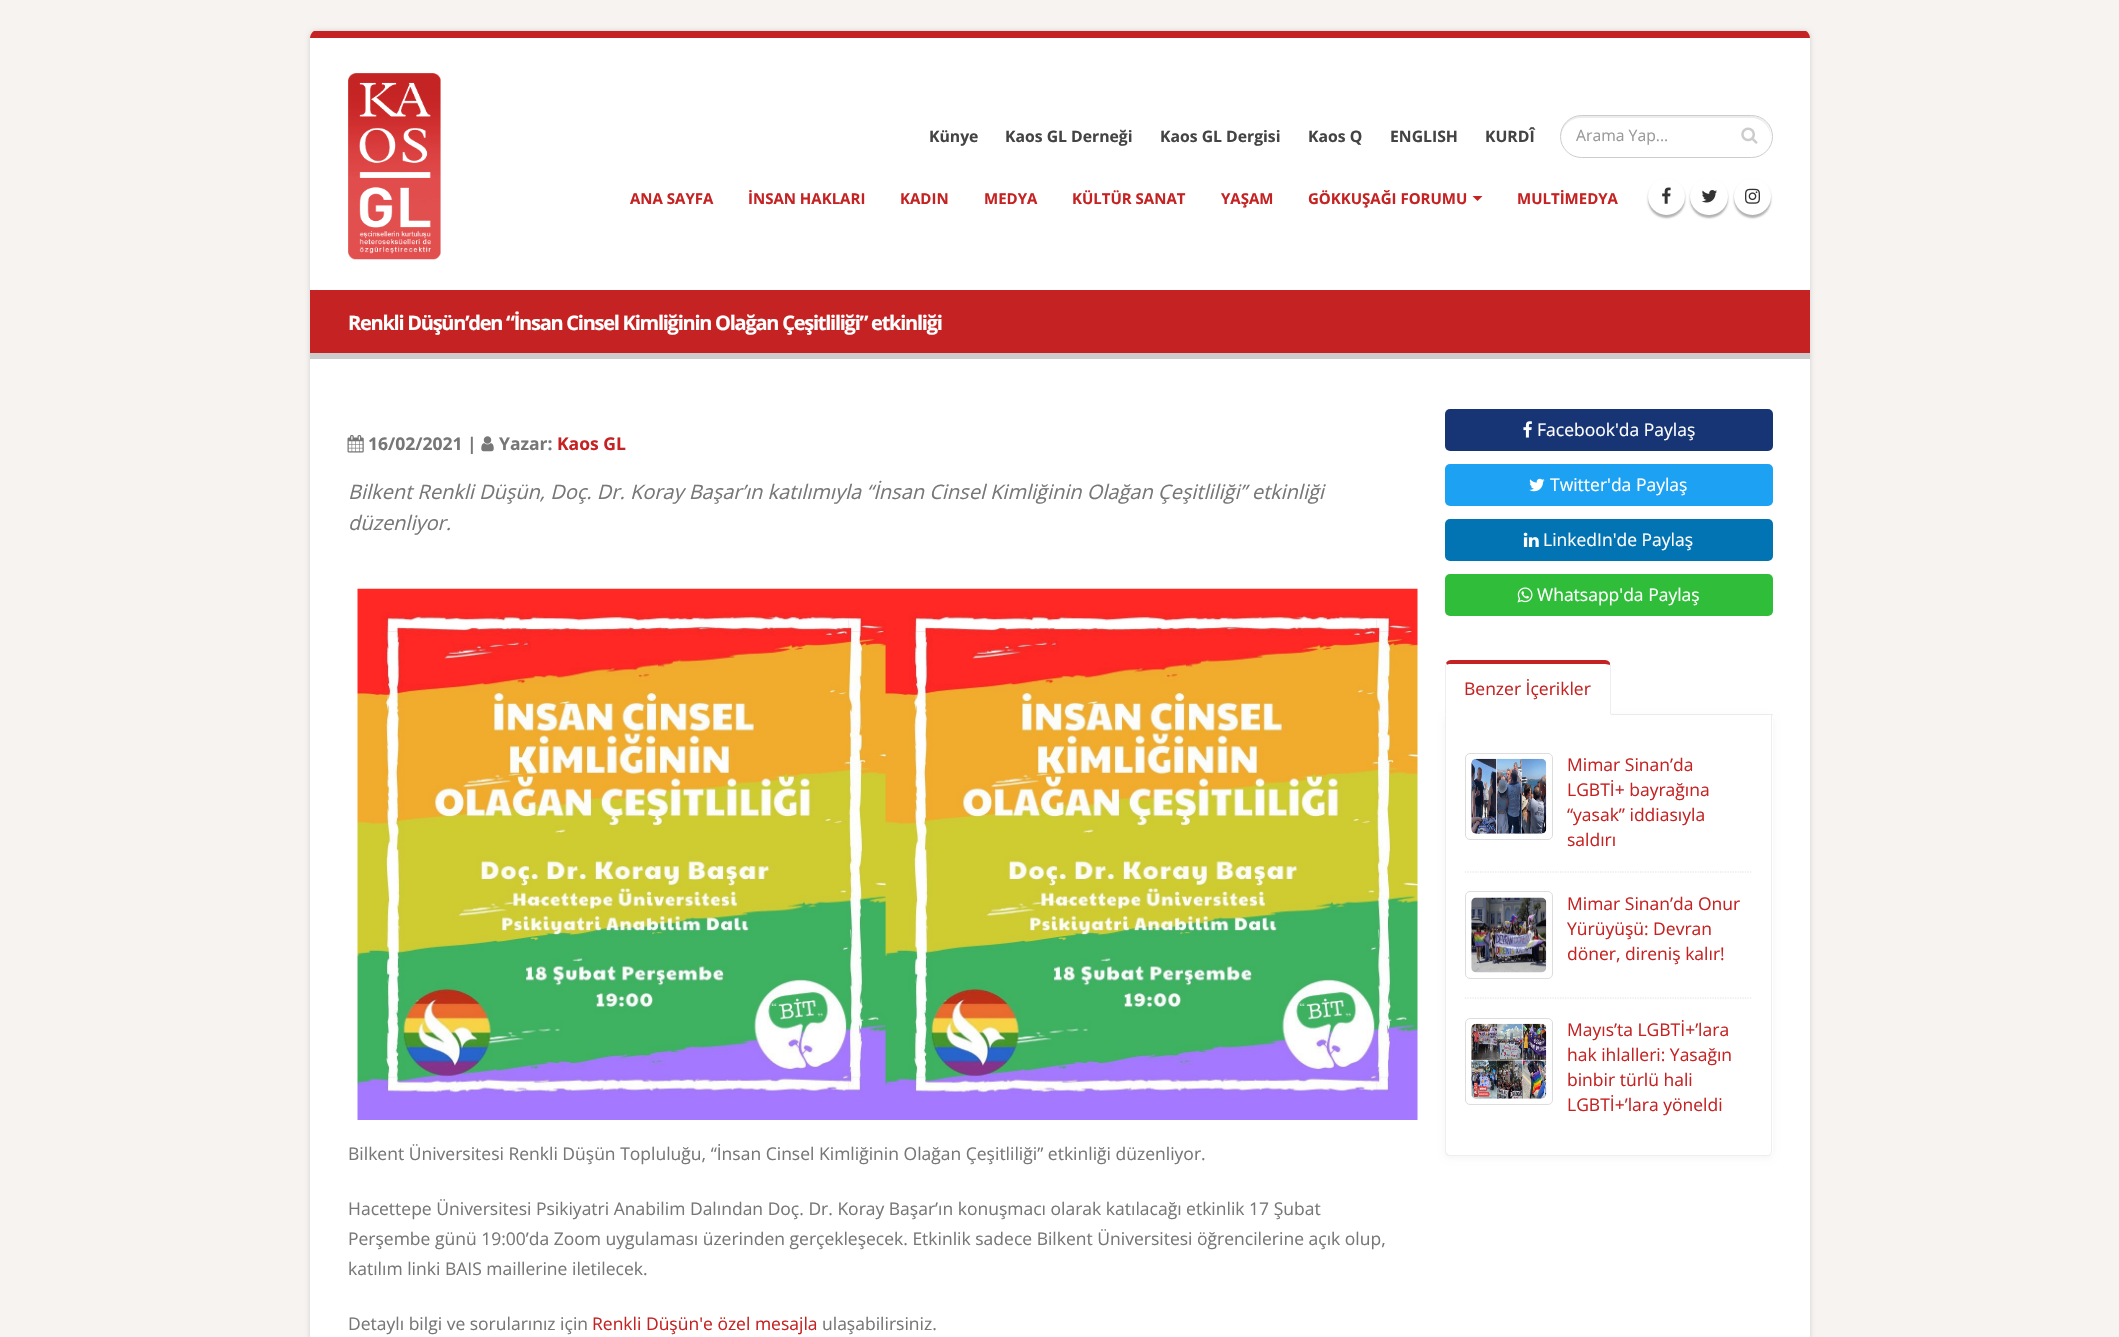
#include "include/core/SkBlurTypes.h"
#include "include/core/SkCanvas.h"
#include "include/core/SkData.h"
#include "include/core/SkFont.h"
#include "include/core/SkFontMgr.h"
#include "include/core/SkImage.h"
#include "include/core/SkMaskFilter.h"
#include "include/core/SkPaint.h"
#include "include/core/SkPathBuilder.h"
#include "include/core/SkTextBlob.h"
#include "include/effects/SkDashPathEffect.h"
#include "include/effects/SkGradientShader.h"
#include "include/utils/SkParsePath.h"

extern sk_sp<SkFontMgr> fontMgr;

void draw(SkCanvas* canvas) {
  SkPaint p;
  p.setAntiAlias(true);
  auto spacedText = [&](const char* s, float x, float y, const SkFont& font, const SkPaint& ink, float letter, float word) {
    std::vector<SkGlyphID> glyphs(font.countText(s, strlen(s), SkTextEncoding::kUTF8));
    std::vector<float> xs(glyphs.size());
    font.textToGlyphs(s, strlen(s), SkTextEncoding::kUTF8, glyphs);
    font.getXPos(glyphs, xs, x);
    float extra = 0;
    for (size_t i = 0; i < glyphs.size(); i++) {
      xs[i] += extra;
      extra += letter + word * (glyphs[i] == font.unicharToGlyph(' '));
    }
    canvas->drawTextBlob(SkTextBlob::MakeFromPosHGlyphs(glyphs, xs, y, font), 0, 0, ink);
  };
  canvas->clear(SkColorSetRGB(246, 243, 240));
  p.setColor(SkColorSetARGB(38, 0, 0, 0));
  p.setMaskFilter(SkMaskFilter::MakeBlur(kNormal_SkBlurStyle, 2.5f));
  canvas->drawRoundRect(SkRect::MakeLTRB(310, 31, 1810, 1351), 6, 6, p);
  p.setMaskFilter(nullptr);
  p.setColor(SK_ColorWHITE);
  canvas->drawRoundRect(SkRect::MakeLTRB(310, 31, 1810, 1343), 6, 6, p);
  p.setColor(SkColorSetRGB(197, 35, 35));
  canvas->drawPath(SkPathBuilder().moveTo(1810, 38).lineTo(310, 38).cubicTo(310, 35, 312, 32, 314, 31).lineTo(1806, 31).cubicTo(1808, 32, 1810, 35, 1810, 38).close().detach(), p);
  canvas->drawImageRect(SkImages::DeferredFromEncodedData(SkData::MakeFromFileName("images/1.png")), SkRect::MakeLTRB(348, 73, 441, 260), SkSamplingOptions());
  p.setColor(SkColorSetRGB(236, 236, 236));
  canvas->drawPath(SkPathBuilder().moveTo(1581, 118).lineTo(1751, 118).cubicTo(1762, 118, 1770, 126, 1771, 137).lineTo(1771, 136).cubicTo(1771, 125, 1762, 116, 1751, 116).lineTo(1581, 116).cubicTo(1570, 116, 1561, 125, 1561, 136).lineTo(1561, 137).cubicTo(1562, 126, 1570, 118, 1581, 118).close().detach(), p);
  p.setStyle(SkPaint::kStroke_Style);
  p.setStrokeWidth(1);
  p.setColor(SkColorSetRGB(204, 204, 204));
  canvas->drawRoundRect(SkRect::MakeLTRB(1560.5f, 115.5f, 1772.5f, 157.5f), 21, 21, p);
  canvas->drawImageRect(SkImages::DeferredFromEncodedData(SkData::MakeFromFileName("images/2.png")), SkRect::MakeLTRB(1741, 127, 1758, 144), SkSamplingOptions());
  p.setStyle(SkPaint::kFill_Style);
  p.setColor(SkColorSetRGB(197, 35, 35));
  canvas->drawPath(SkPathBuilder().moveTo(1472.5f, 196).lineTo(1482.5f, 196).lineTo(1477.5f, 201).close().detach(), p);
  p.setColor(SkColorSetARGB(77, 0, 0, 0));
  p.setMaskFilter(SkMaskFilter::MakeBlur(kNormal_SkBlurStyle, 1));
  canvas->drawRoundRect(SkRect::MakeLTRB(1648, 180, 1685, 218), 18.5f, 18.5f, p);
  p.setMaskFilter(nullptr);
  p.setColor(SK_ColorWHITE);
  canvas->drawCircle(1666.5f, 196.5f, 18.5f, p);
  canvas->drawImageRect(SkImages::DeferredFromEncodedData(SkData::MakeFromFileName("images/3.png")), SkRect::MakeLTRB(1662, 187, 1671, 204), SkSamplingOptions());
  p.setColor(SkColorSetARGB(77, 0, 0, 0));
  p.setMaskFilter(SkMaskFilter::MakeBlur(kNormal_SkBlurStyle, 1));
  canvas->drawRoundRect(SkRect::MakeLTRB(1690, 180, 1728, 218), 19, 19, p);
  p.setMaskFilter(nullptr);
  p.setColor(SK_ColorWHITE);
  canvas->drawRoundRect(SkRect::MakeLTRB(1690, 178, 1728, 215), 18.5f, 18.5f, p);
  canvas->drawImageRect(SkImages::DeferredFromEncodedData(SkData::MakeFromFileName("images/4.png")), SkRect::MakeLTRB(1701, 190, 1717, 203), SkSamplingOptions());
  p.setColor(SkColorSetARGB(77, 0, 0, 0));
  p.setMaskFilter(SkMaskFilter::MakeBlur(kNormal_SkBlurStyle, 1));
  canvas->drawRoundRect(SkRect::MakeLTRB(1734, 180, 1771, 218), 18.5f, 18.5f, p);
  p.setMaskFilter(nullptr);
  p.setColor(SK_ColorWHITE);
  canvas->drawCircle(1752.5f, 196.5f, 18.5f, p);
  canvas->drawImageRect(SkImages::DeferredFromEncodedData(SkData::MakeFromFileName("images/5.png")), SkRect::MakeLTRB(1745, 188, 1760, 204), SkSamplingOptions());
  p.setColor(SkColorSetRGB(197, 35, 35));
  canvas->drawRect(SkRect::MakeLTRB(310, 290, 1810, 353), p);
  p.setColor(SkColorSetRGB(204, 204, 204));
  canvas->drawRect(SkRect::MakeLTRB(310, 353, 1810, 359), p);
  canvas->drawImageRect(SkImages::DeferredFromEncodedData(SkData::MakeFromFileName("images/6.png")), SkRect::MakeLTRB(347, 435, 364, 453), SkSamplingOptions());
  canvas->drawImageRect(SkImages::DeferredFromEncodedData(SkData::MakeFromFileName("images/7.png")), SkRect::MakeLTRB(481, 436, 494, 452), SkSamplingOptions());
  canvas->drawImageRect(SkImages::DeferredFromEncodedData(SkData::MakeFromFileName("images/8.png")), SkRect::MakeLTRB(357, 588, 1418, 1120), SkSamplingOptions());
  p.setColor(SkColorSetRGB(23, 53, 116));
  canvas->drawRoundRect(SkRect::MakeLTRB(1445, 409, 1773, 451), 5, 5, p);
  canvas->drawImageRect(SkImages::DeferredFromEncodedData(SkData::MakeFromFileName("images/9.png")), SkRect::MakeLTRB(1523, 421, 1532, 438), SkSamplingOptions());
  p.setColor(SkColorSetRGB(29, 161, 242));
  canvas->drawRoundRect(SkRect::MakeLTRB(1445, 464, 1773, 506), 5, 5, p);
  canvas->drawImageRect(SkImages::DeferredFromEncodedData(SkData::MakeFromFileName("images/10.png")), SkRect::MakeLTRB(1529, 478, 1545, 492), SkSamplingOptions());
  p.setColor(SkColorSetRGB(2, 116, 179));
  canvas->drawRoundRect(SkRect::MakeLTRB(1445, 519, 1773, 561), 5, 5, p);
  canvas->drawImageRect(SkImages::DeferredFromEncodedData(SkData::MakeFromFileName("images/11.png")), SkRect::MakeLTRB(1523, 532, 1539, 547), SkSamplingOptions());
  p.setColor(SkColorSetRGB(48, 190, 58));
  canvas->drawRoundRect(SkRect::MakeLTRB(1445, 574, 1773, 616), 5, 5, p);
  canvas->drawImageRect(SkImages::DeferredFromEncodedData(SkData::MakeFromFileName("images/12.png")), SkRect::MakeLTRB(1517, 587, 1533, 603), SkSamplingOptions());
  p.setColor(SkColorSetRGB(238, 238, 238));
  canvas->drawRect(SkRect::MakeLTRB(1611, 714, 1773, 715), p);
  p.setColor(SkColorSetARGB(10, 0, 0, 0));
  p.setMaskFilter(SkMaskFilter::MakeBlur(kNormal_SkBlurStyle, 3));
  canvas->drawRoundRect(SkRect::MakeLTRB(1445, 716, 1773, 1158), 5, 5, p);
  p.setMaskFilter(nullptr);
  p.setColor(SK_ColorWHITE);
  canvas->drawPath(SkPathBuilder().moveTo(1451, 660).lineTo(1605, 660).cubicTo(1608.5f, 660, 1611, 662.5f, 1611, 666).lineTo(1611, 715).lineTo(1445, 715).lineTo(1445, 666).cubicTo(1445, 662.5f, 1447.5f, 660, 1451, 660).close().detach(), p);
  p.setColor(SkColorSetRGB(197, 35, 35));
  canvas->drawPath(SkPathBuilder().moveTo(1451, 660).cubicTo(1449, 660, 1447, 661, 1446, 663).lineTo(1447, 665).cubicTo(1447, 664, 1449, 664, 1451, 664).lineTo(1605, 664).cubicTo(1607, 664, 1609, 665, 1610, 665).lineTo(1610, 663).cubicTo(1609, 661, 1607, 660, 1605, 660).close().detach(), p);
  p.setColor(SkColorSetRGB(238, 238, 238));
  canvas->drawPath(SkPathBuilder().moveTo(1610, 663).lineTo(1611, 666).lineTo(1611, 715).lineTo(1610, 714).cubicTo(1610, 709, 1610, 666, 1610, 665).close().detach(), p);
  canvas->drawPath(SkPathBuilder().moveTo(1445, 715).lineTo(1446, 714).lineTo(1446, 666).lineTo(1447, 665).lineTo(1446, 663).lineTo(1445, 666).close().detach(), p);
  p.setColor(SK_ColorWHITE);
  canvas->drawPath(SkPathBuilder().moveTo(1445, 715).lineTo(1773, 715).lineTo(1773, 1151).cubicTo(1773, 1154, 1771, 1156, 1768, 1156).lineTo(1450, 1156).cubicTo(1447, 1156, 1445, 1154, 1445, 1151).close().detach(), p);
  p.setColor(SkColorSetRGB(238, 238, 238));
  canvas->drawPath(SkPathBuilder(SkPathFillType::kEvenOdd).moveTo(1445, 715).lineTo(1772, 715).lineTo(1772, 1151).cubicTo(1772, 1154, 1770, 1156, 1768, 1156).lineTo(1450, 1156).cubicTo(1447, 1156, 1445, 1154, 1445, 1151).close().moveTo(1446, 715).lineTo(1771, 715).lineTo(1771, 1151).cubicTo(1771, 1153, 1770, 1155, 1768, 1155).lineTo(1450, 1155).cubicTo(1448, 1155, 1446, 1153, 1446, 1151).close().detach(), p);
  p.setStyle(SkPaint::kStroke_Style);
  p.setStrokeWidth(1.2f);
  p.setColor(SkColorSetRGB(226, 226, 226));
  p.setPathEffect(SkDashPathEffect::Make({{1.25f, 1.25f}}, 0));
  canvas->drawPath(SkPathBuilder().moveTo(1465, 872).lineTo(1752.5f, 872).detach(), p);
  p.setPathEffect(nullptr);
  p.setStrokeWidth(1);
  p.setColor(SkColorSetRGB(221, 221, 221));
  canvas->drawRoundRect(SkRect::MakeLTRB(1465.5f, 753.5f, 1552.5f, 839.5f), 4.5f, 4.5f, p);
  canvas->drawImageRect(SkImages::DeferredFromEncodedData(SkData::MakeFromFileName("images/13.png")), SkRect::MakeLTRB(1471, 758, 1547, 834), SkSamplingOptions());
  p.setStrokeWidth(1.2f);
  p.setColor(SkColorSetRGB(226, 226, 226));
  p.setPathEffect(SkDashPathEffect::Make({{1.25f, 1.25f}}, 0));
  canvas->drawPath(SkPathBuilder().moveTo(1465, 998).lineTo(1752.5f, 998).detach(), p);
  p.setPathEffect(nullptr);
  p.setStrokeWidth(1);
  p.setColor(SkColorSetRGB(221, 221, 221));
  canvas->drawRoundRect(SkRect::MakeLTRB(1465.5f, 891.5f, 1552.5f, 978.5f), 4.5f, 4.5f, p);
  canvas->drawImageRect(SkImages::DeferredFromEncodedData(SkData::MakeFromFileName("images/14.png")), SkRect::MakeLTRB(1471, 897, 1547, 973), SkSamplingOptions());
  canvas->drawRoundRect(SkRect::MakeLTRB(1465.5f, 1018.5f, 1552.5f, 1104.5f), 4.5f, 4.5f, p);
  canvas->drawImageRect(SkImages::DeferredFromEncodedData(SkData::MakeFromFileName("images/15.png")), SkRect::MakeLTRB(1471, 1023, 1547, 1099), SkSamplingOptions());
  SkFont font1(fontMgr->matchFamilyStyle("Open Sans", SkFontStyle::Bold()), 15.75f);
  font1.setSubpixel(true);
  p.setStyle(SkPaint::kFill_Style);
  p.setColor(SkColorSetRGB(68, 68, 68));
  canvas->drawString("Künye", 929, 142, font1, p);
  canvas->drawString("Kaos GL Derneği", 1005, 142, font1, p);
  canvas->drawString("Kaos GL Dergisi", 1160, 142, font1, p);
  canvas->drawString("Kaos Q", 1308, 142, font1, p);
  canvas->drawString("ENGLISH", 1390, 142, font1, p);
  canvas->drawString("KURDÎ", 1485, 142, font1, p);
  SkFont font2(fontMgr->matchFamilyStyle("Open Sans", SkFontStyle::Normal()), 15.75f);
  font2.setSubpixel(true);
  p.setColor(SkColorSetRGB(153, 153, 153));
  canvas->drawString("Arama Yap...", 1576, 141, font2, p);
  SkFont font3(fontMgr->matchFamilyStyle("Open Sans", SkFontStyle::Bold()), 15);
  font3.setSubpixel(true);
  p.setColor(SkColorSetRGB(197, 35, 35));
  canvas->drawString("ANA SAYFA", 630, 204, font3, p);
  canvas->drawString("İNSAN HAKLARI", 748, 204, font3, p);
  canvas->drawString("KADIN", 900, 204, font3, p);
  canvas->drawString("MEDYA", 984, 204, font3, p);
  canvas->drawString("KÜLTÜR SANAT", 1072, 204, font3, p);
  canvas->drawString("YAŞAM", 1221, 204, font3, p);
  canvas->drawString("GÖKKUŞAĞI FORUMU", 1308, 204, font3, p);
  canvas->drawString("MULTİMEDYA", 1517, 204, font3, p);
  SkFont font4(fontMgr->matchFamilyStyle("Open Sans", SkFontStyle::Bold()), 20);
  font4.setSubpixel(true);
  p.setColor(SK_ColorWHITE);
  spacedText("Renkli Düşün’den “İnsan Cinsel Kimliğinin Olağan Çeşitliliği” etkinliği", 348, 330, font4, p, -1.25f, 0);
  SkFont font5(fontMgr->matchFamilyStyle("Open Sans", SkFontStyle::Bold()), 17.5f);
  font5.setSubpixel(true);
  p.setColor(SkColorSetRGB(119, 119, 119));
  canvas->drawString("16/02/2021 |", 368, 450, font5, p);
  canvas->drawString("Yazar:", 499, 450, font5, p);
  p.setColor(SkColorSetRGB(197, 35, 35));
  canvas->drawString("Kaos GL", 557, 450, font5, p);
  SkFont font6(fontMgr->matchFamilyStyle("Open Sans", SkFontStyle::Italic()), 20);
  font6.setSubpixel(true);
  p.setColor(SkColorSetRGB(119, 119, 119));
  canvas->drawString("Bilkent Renkli Düşün, Doç. Dr. Koray Başar’ın katılımıyla “İnsan Cinsel Kimliğinin Olağan Çeşitliliği” etkinliği", 348, 499, font6, p);
  canvas->drawString("düzenliyor.", 348, 530, font6, p);
  SkFont font7(fontMgr->matchFamilyStyle("Open Sans", SkFontStyle::Normal()), 17.5f);
  font7.setSubpixel(true);
  canvas->drawString("Bilkent Üniversitesi Renkli Düşün Topluluğu, “İnsan Cinsel Kimliğinin Olağan Çeşitliliği” etkinliği düzenliyor.", 348, 1160, font7, p);
  canvas->drawString("Hacettepe Üniversitesi Psikiyatri Anabilim Dalından Doç. Dr. Koray Başar’ın konuşmacı olarak katılacağı etkinlik 17 Şubat", 348, 1215, font7, p);
  canvas->drawString("Perşembe günü 19:00’da Zoom uygulaması üzerinden gerçekleşecek. Etkinlik sadece Bilkent Üniversitesi öğrencilerine açık olup,", 348, 1245, font7, p);
  canvas->drawString("katılım linki BAIS maillerine iletilecek.", 348, 1275, font7, p);
  canvas->drawString("Detaylı bilgi ve sorularınız için", 348, 1330, font7, p);
  p.setColor(SkColorSetRGB(197, 35, 35));
  canvas->drawString("Renkli Düşün'e özel mesajla", 592, 1330, font7, p);
  p.setColor(SkColorSetRGB(119, 119, 119));
  canvas->drawString("ulaşabilirsiniz.", 822, 1330, font7, p);
  p.setColor(SK_ColorWHITE);
  canvas->drawString("Facebook'da Paylaş", 1537, 436, font7, p);
  canvas->drawString("Twitter'da Paylaş", 1550, 491, font7, p);
  canvas->drawString("LinkedIn'de Paylaş", 1543, 546, font7, p);
  canvas->drawString("Whatsapp'da Paylaş", 1537, 601, font7, p);
  p.setColor(SkColorSetRGB(197, 35, 35));
  canvas->drawString("Benzer İçerikler", 1464, 695, font7, p);
  canvas->drawString("Mimar Sinan’da", 1567, 771, font7, p);
  canvas->drawString("LGBTİ+ bayrağına", 1567, 796, font7, p);
  canvas->drawString("“yasak” iddiasıyla", 1567, 821, font7, p);
  canvas->drawString("saldırı", 1567, 846, font7, p);
  canvas->drawString("Mimar Sinan’da Onur", 1567, 910, font7, p);
  canvas->drawString("Yürüyüşü: Devran", 1567, 935, font7, p);
  canvas->drawString("döner, direniş kalır!", 1567, 960, font7, p);
  canvas->drawString("Mayıs’ta LGBTİ+’lara", 1567, 1036, font7, p);
  canvas->drawString("hak ihlalleri: Yasağın", 1567, 1061, font7, p);
  canvas->drawString("binbir türlü hali", 1567, 1086, font7, p);
  canvas->drawString("LGBTİ+’lara yöneldi", 1567, 1111, font7, p);
}
